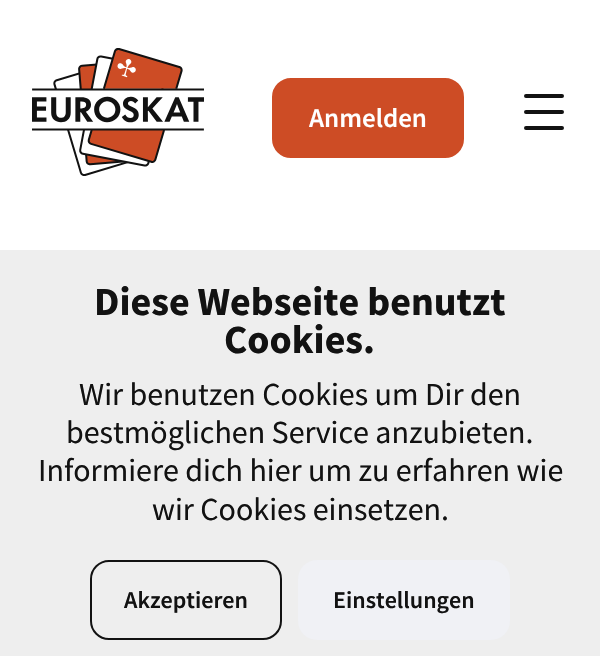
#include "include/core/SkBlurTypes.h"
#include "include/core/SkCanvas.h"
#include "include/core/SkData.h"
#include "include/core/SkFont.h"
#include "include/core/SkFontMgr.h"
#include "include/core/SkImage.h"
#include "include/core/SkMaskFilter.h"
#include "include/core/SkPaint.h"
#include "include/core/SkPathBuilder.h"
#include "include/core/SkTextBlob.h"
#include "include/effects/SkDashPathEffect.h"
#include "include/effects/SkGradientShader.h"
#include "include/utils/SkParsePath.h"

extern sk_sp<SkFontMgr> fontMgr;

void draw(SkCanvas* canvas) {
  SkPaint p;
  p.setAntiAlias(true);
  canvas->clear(SK_ColorWHITE);
  canvas->drawImageRect(SkImages::DeferredFromEncodedData(SkData::MakeFromFileName("images/1.png")), SkRect::MakeLTRB(32, 48, 204, 176), SkSamplingOptions());
  p.setColor(SkColorSetRGB(205, 76, 37));
  canvas->drawRoundRect(SkRect::MakeLTRB(273.5f, 79.5f, 462.5f, 156.5f), 17.5f, 17.5f, p);
  p.setStyle(SkPaint::kStroke_Style);
  p.setStrokeWidth(3);
  canvas->drawRoundRect(SkRect::MakeLTRB(273.5f, 79.5f, 462.5f, 156.5f), 17.5f, 17.5f, p);
  p.setStrokeWidth(4);
  p.setStrokeCap(SkPaint::kRound_Cap);
  p.setColor(SkColorSetRGB(18, 18, 18));
  canvas->drawPath(SkPathBuilder().moveTo(526, 112).lineTo(562, 112).moveTo(526, 128).lineTo(562, 128).moveTo(526, 96).lineTo(562, 96).detach(), p);
  p.setStyle(SkPaint::kFill_Style);
  p.setColor(SkColorSetRGB(238, 238, 238));
  canvas->drawRect(SkRect::MakeLTRB(0, 250, 600, 656), p);
  p.setStyle(SkPaint::kStroke_Style);
  p.setStrokeWidth(2);
  p.setStrokeCap(SkPaint::kButt_Cap);
  p.setColor(SkColorSetRGB(18, 18, 18));
  canvas->drawRoundRect(SkRect::MakeLTRB(91, 561, 281, 639), 18, 18, p);
  p.setStyle(SkPaint::kFill_Style);
  p.setColor(SkColorSetRGB(240, 241, 245));
  canvas->drawRoundRect(SkRect::MakeLTRB(298, 560, 510, 640), 19, 19, p);
  SkFont font1(fontMgr->matchFamilyStyle("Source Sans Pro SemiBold", SkFontStyle(600, SkFontStyle::kNormal_Width, SkFontStyle::kUpright_Slant)), 27);
  font1.setSubpixel(true);
  p.setColor(SK_ColorWHITE);
  canvas->drawString("Anmelden", 309, 127, font1, p);
  SkFont font2(fontMgr->matchFamilyStyle("Source Sans Pro", SkFontStyle::Bold()), 40);
  font2.setSubpixel(true);
  p.setColor(SkColorSetRGB(18, 18, 18));
  canvas->drawString("Diese Webseite benutzt", 94, 315, font2, p);
  canvas->drawString("Cookies.", 224, 353, font2, p);
  SkFont font3(fontMgr->matchFamilyStyle("Source Sans Pro", SkFontStyle::Normal()), 32);
  font3.setSubpixel(true);
  canvas->drawString("Wir benutzen Cookies um Dir den", 79, 405, font3, p);
  canvas->drawString("bestmöglichen Service anzubieten.", 66, 443, font3, p);
  canvas->drawString("Informiere dich hier um zu erfahren wie", 38, 481, font3, p);
  canvas->drawString("wir Cookies einsetzen.", 152, 520, font3, p);
  SkFont font4(fontMgr->matchFamilyStyle("Source Sans Pro SemiBold", SkFontStyle(600, SkFontStyle::kNormal_Width, SkFontStyle::kUpright_Slant)), 24);
  font4.setSubpixel(true);
  canvas->drawString("Akzeptieren", 124, 608, font4, p);
  canvas->drawString("Einstellungen", 333, 608, font4, p);
}
